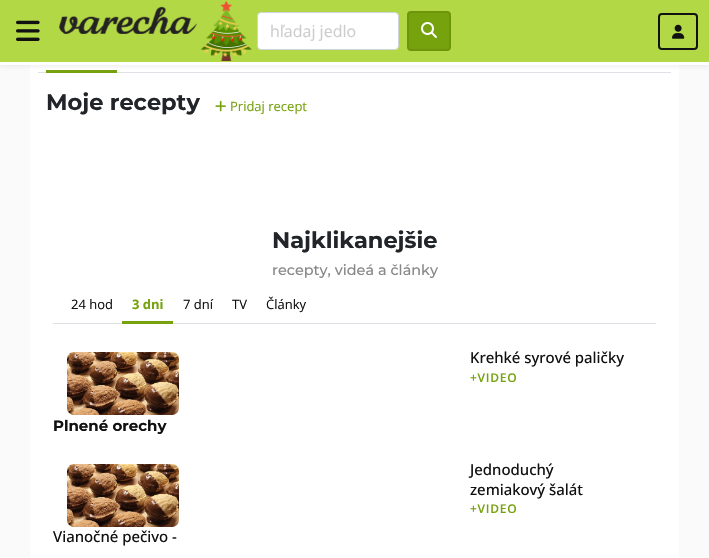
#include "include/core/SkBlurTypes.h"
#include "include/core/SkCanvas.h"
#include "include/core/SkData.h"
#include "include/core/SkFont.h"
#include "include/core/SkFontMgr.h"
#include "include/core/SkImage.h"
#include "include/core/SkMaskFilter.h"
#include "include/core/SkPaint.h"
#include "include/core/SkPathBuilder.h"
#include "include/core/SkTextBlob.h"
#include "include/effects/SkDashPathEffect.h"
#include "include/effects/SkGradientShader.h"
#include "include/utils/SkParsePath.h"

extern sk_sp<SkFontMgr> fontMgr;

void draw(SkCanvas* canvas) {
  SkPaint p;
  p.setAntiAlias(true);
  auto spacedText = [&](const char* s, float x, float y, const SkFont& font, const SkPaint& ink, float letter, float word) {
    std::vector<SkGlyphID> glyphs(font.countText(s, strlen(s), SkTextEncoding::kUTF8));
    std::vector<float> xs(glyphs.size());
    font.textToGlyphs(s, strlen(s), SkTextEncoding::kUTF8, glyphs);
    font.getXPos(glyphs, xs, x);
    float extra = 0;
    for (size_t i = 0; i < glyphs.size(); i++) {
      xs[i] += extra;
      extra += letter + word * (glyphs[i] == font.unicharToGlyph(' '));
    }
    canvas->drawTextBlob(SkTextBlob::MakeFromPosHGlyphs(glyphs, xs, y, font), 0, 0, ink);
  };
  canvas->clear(SkColorSetRGB(250, 250, 250));
  p.setColor(SK_ColorWHITE);
  canvas->drawRect(SkRect::MakeLTRB(30, 65, 679, 558), p);
  p.setColor(SkColorSetRGB(222, 226, 230));
  canvas->drawRect(SkRect::MakeLTRB(38, 72, 671, 73), p);
  p.setColor(SkColorSetRGB(118, 162, 14));
  canvas->drawRect(SkRect::MakeLTRB(46, 70, 117, 73), p);
  p.setColor(SkColorSetARGB(82, 204, 204, 204));
  p.setMaskFilter(SkMaskFilter::MakeBlur(kNormal_SkBlurStyle, 2));
  canvas->drawRect(SkRect::MakeLTRB(0, 2, 709, 67), p);
  p.setMaskFilter(nullptr);
  p.setColor(SkColorSetRGB(179, 216, 70));
  canvas->drawRect(SkRect::MakeLTRB(0, 0, 709, 62), p);
  p.setColor(SK_ColorWHITE);
  canvas->drawRect(SkRect::MakeLTRB(0, 62, 709, 65), p);
  canvas->drawImageRect(SkImages::DeferredFromEncodedData(SkData::MakeFromFileName("images/1.png")), SkRect::MakeLTRB(16, 20, 40, 41), SkSamplingOptions());
  canvas->drawImageRect(SkImages::DeferredFromEncodedData(SkData::MakeFromFileName("images/2.png")), SkRect::MakeLTRB(59, 6, 197, 34), SkSamplingOptions());
  canvas->drawImageRect(SkImages::DeferredFromEncodedData(SkData::MakeFromFileName("images/3.png")), SkRect::MakeLTRB(200, 1, 252, 61), SkSamplingOptions());
  canvas->drawRoundRect(SkRect::MakeLTRB(257.5f, 12.5f, 398.5f, 49.5f), 3.5f, 3.5f, p);
  p.setStyle(SkPaint::kStroke_Style);
  p.setStrokeWidth(1);
  p.setColor(SkColorSetRGB(206, 212, 218));
  canvas->drawRoundRect(SkRect::MakeLTRB(257.5f, 12.5f, 398.5f, 49.5f), 3.5f, 3.5f, p);
  p.setStyle(SkPaint::kFill_Style);
  p.setColor(SkColorSetRGB(118, 162, 14));
  canvas->drawRoundRect(SkRect::MakeLTRB(408, 12, 450, 50), 3, 3, p);
  p.setStyle(SkPaint::kStroke_Style);
  p.setStrokeWidth(2);
  p.setColor(SkColorSetRGB(109, 148, 10));
  canvas->drawRoundRect(SkRect::MakeLTRB(408, 12, 450, 50), 3, 3, p);
  canvas->drawImageRect(SkImages::DeferredFromEncodedData(SkData::MakeFromFileName("images/4.png")), SkRect::MakeLTRB(421, 22, 437, 38), SkSamplingOptions());
  p.setColor(SkColorSetRGB(17, 17, 17));
  canvas->drawRoundRect(SkRect::MakeLTRB(659, 14, 697, 49), 3, 3, p);
  canvas->drawImageRect(SkImages::DeferredFromEncodedData(SkData::MakeFromFileName("images/5.png")), SkRect::MakeLTRB(672, 24, 685, 39), SkSamplingOptions());
  canvas->drawImageRect(SkImages::DeferredFromEncodedData(SkData::MakeFromFileName("images/6.png")), SkRect::MakeLTRB(215, 100, 226, 112), SkSamplingOptions());
  p.setStyle(SkPaint::kFill_Style);
  p.setColor(SkColorSetRGB(222, 226, 230));
  canvas->drawRect(SkRect::MakeLTRB(53, 323, 656, 324), p);
  p.setColor(SK_ColorWHITE);
  canvas->drawPath(SkPathBuilder().moveTo(126, 289).lineTo(169, 289).cubicTo(171, 289, 173, 291, 173, 293).lineTo(173, 324).lineTo(122, 324).lineTo(122, 293).cubicTo(122, 291, 124, 289, 126, 289).close().detach(), p);
  p.setColor(SkColorSetRGB(118, 162, 14));
  canvas->drawRect(SkRect::MakeLTRB(122, 321, 173, 324), p);
  canvas->drawImageRect(SkImages::DeferredFromEncodedData(SkData::MakeFromFileName("images/7.png")), SkRect::MakeLTRB(67, 352, 179, 415), SkSamplingOptions());
  canvas->drawImageRect(SkImages::DeferredFromEncodedData(SkData::MakeFromFileName("images/7.png")), SkRect::MakeLTRB(67, 464, 179, 527), SkSamplingOptions());
  SkFont font1(fontMgr->matchFamilyStyle("Open Sans", SkFontStyle::Normal()), 16);
  font1.setSubpixel(true);
  p.setColor(SkColorSetRGB(204, 204, 204));
  canvas->drawString("hľadaj jedlo", 270, 37, font1, p);
  SkFont font2(fontMgr->matchFamilyStyle("Montserrat", SkFontStyle::Bold()), 22.5f);
  font2.setSubpixel(true);
  p.setColor(SkColorSetRGB(33, 37, 41));
  canvas->drawString("Moje recepty", 46, 110, font2, p);
  SkFont font3(fontMgr->matchFamilyStyle("Open Sans", SkFontStyle::Normal()), 13);
  font3.setSubpixel(true);
  p.setColor(SkColorSetRGB(118, 162, 14));
  canvas->drawString("Pridaj recept", 230, 111, font3, p);
  p.setColor(SkColorSetRGB(33, 37, 41));
  canvas->drawString("Najklikanejšie", 272, 248, font2, p);
  SkFont font4(fontMgr->matchFamilyStyle("Montserrat", SkFontStyle(500, SkFontStyle::kNormal_Width, SkFontStyle::kUpright_Slant)), 14.4f);
  font4.setSubpixel(true);
  p.setColor(SkColorSetRGB(136, 136, 136));
  canvas->drawString("recepty, videá a články", 272, 275, font4, p);
  p.setColor(SkColorSetRGB(17, 17, 17));
  canvas->drawString("24 hod", 71, 309, font3, p);
  SkFont font5(fontMgr->matchFamilyStyle("Open Sans", SkFontStyle::Bold()), 13);
  font5.setSubpixel(true);
  p.setColor(SkColorSetRGB(118, 162, 14));
  canvas->drawString("3 dni", 132, 309, font5, p);
  p.setColor(SkColorSetRGB(17, 17, 17));
  canvas->drawString("7 dní", 183, 309, font3, p);
  canvas->drawString("TV", 232, 309, font3, p);
  canvas->drawString("Články", 266, 309, font3, p);
  SkFont font6(fontMgr->matchFamilyStyle("Open Sans", SkFontStyle(500, SkFontStyle::kNormal_Width, SkFontStyle::kUpright_Slant)), 15);
  font6.setSubpixel(true);
  canvas->drawString("Krehké syrové paličky", 470, 363, font6, p);
  SkFont font7(fontMgr->matchFamilyStyle("Open Sans", SkFontStyle(600, SkFontStyle::kNormal_Width, SkFontStyle::kUpright_Slant)), 12);
  font7.setSubpixel(true);
  p.setColor(SkColorSetRGB(118, 162, 14));
  spacedText("+VIDEO", 470, 382, font7, p, 0.75f, 0);
  SkFont font8(fontMgr->matchFamilyStyle("Montserrat", SkFontStyle::Bold()), 15);
  font8.setSubpixel(true);
  p.setColor(SkColorSetRGB(17, 17, 17));
  canvas->drawString("Plnené orechy", 53, 431, font8, p);
  canvas->drawString("Jednoduchý", 470, 475, font6, p);
  canvas->drawString("zemiakový šalát", 470, 495, font6, p);
  p.setColor(SkColorSetRGB(118, 162, 14));
  spacedText("+VIDEO", 470, 513, font7, p, 0.75f, 0);
  p.setColor(SkColorSetRGB(17, 17, 17));
  canvas->drawString("Vianočné pečivo -", 53, 542, font6, p);
}
